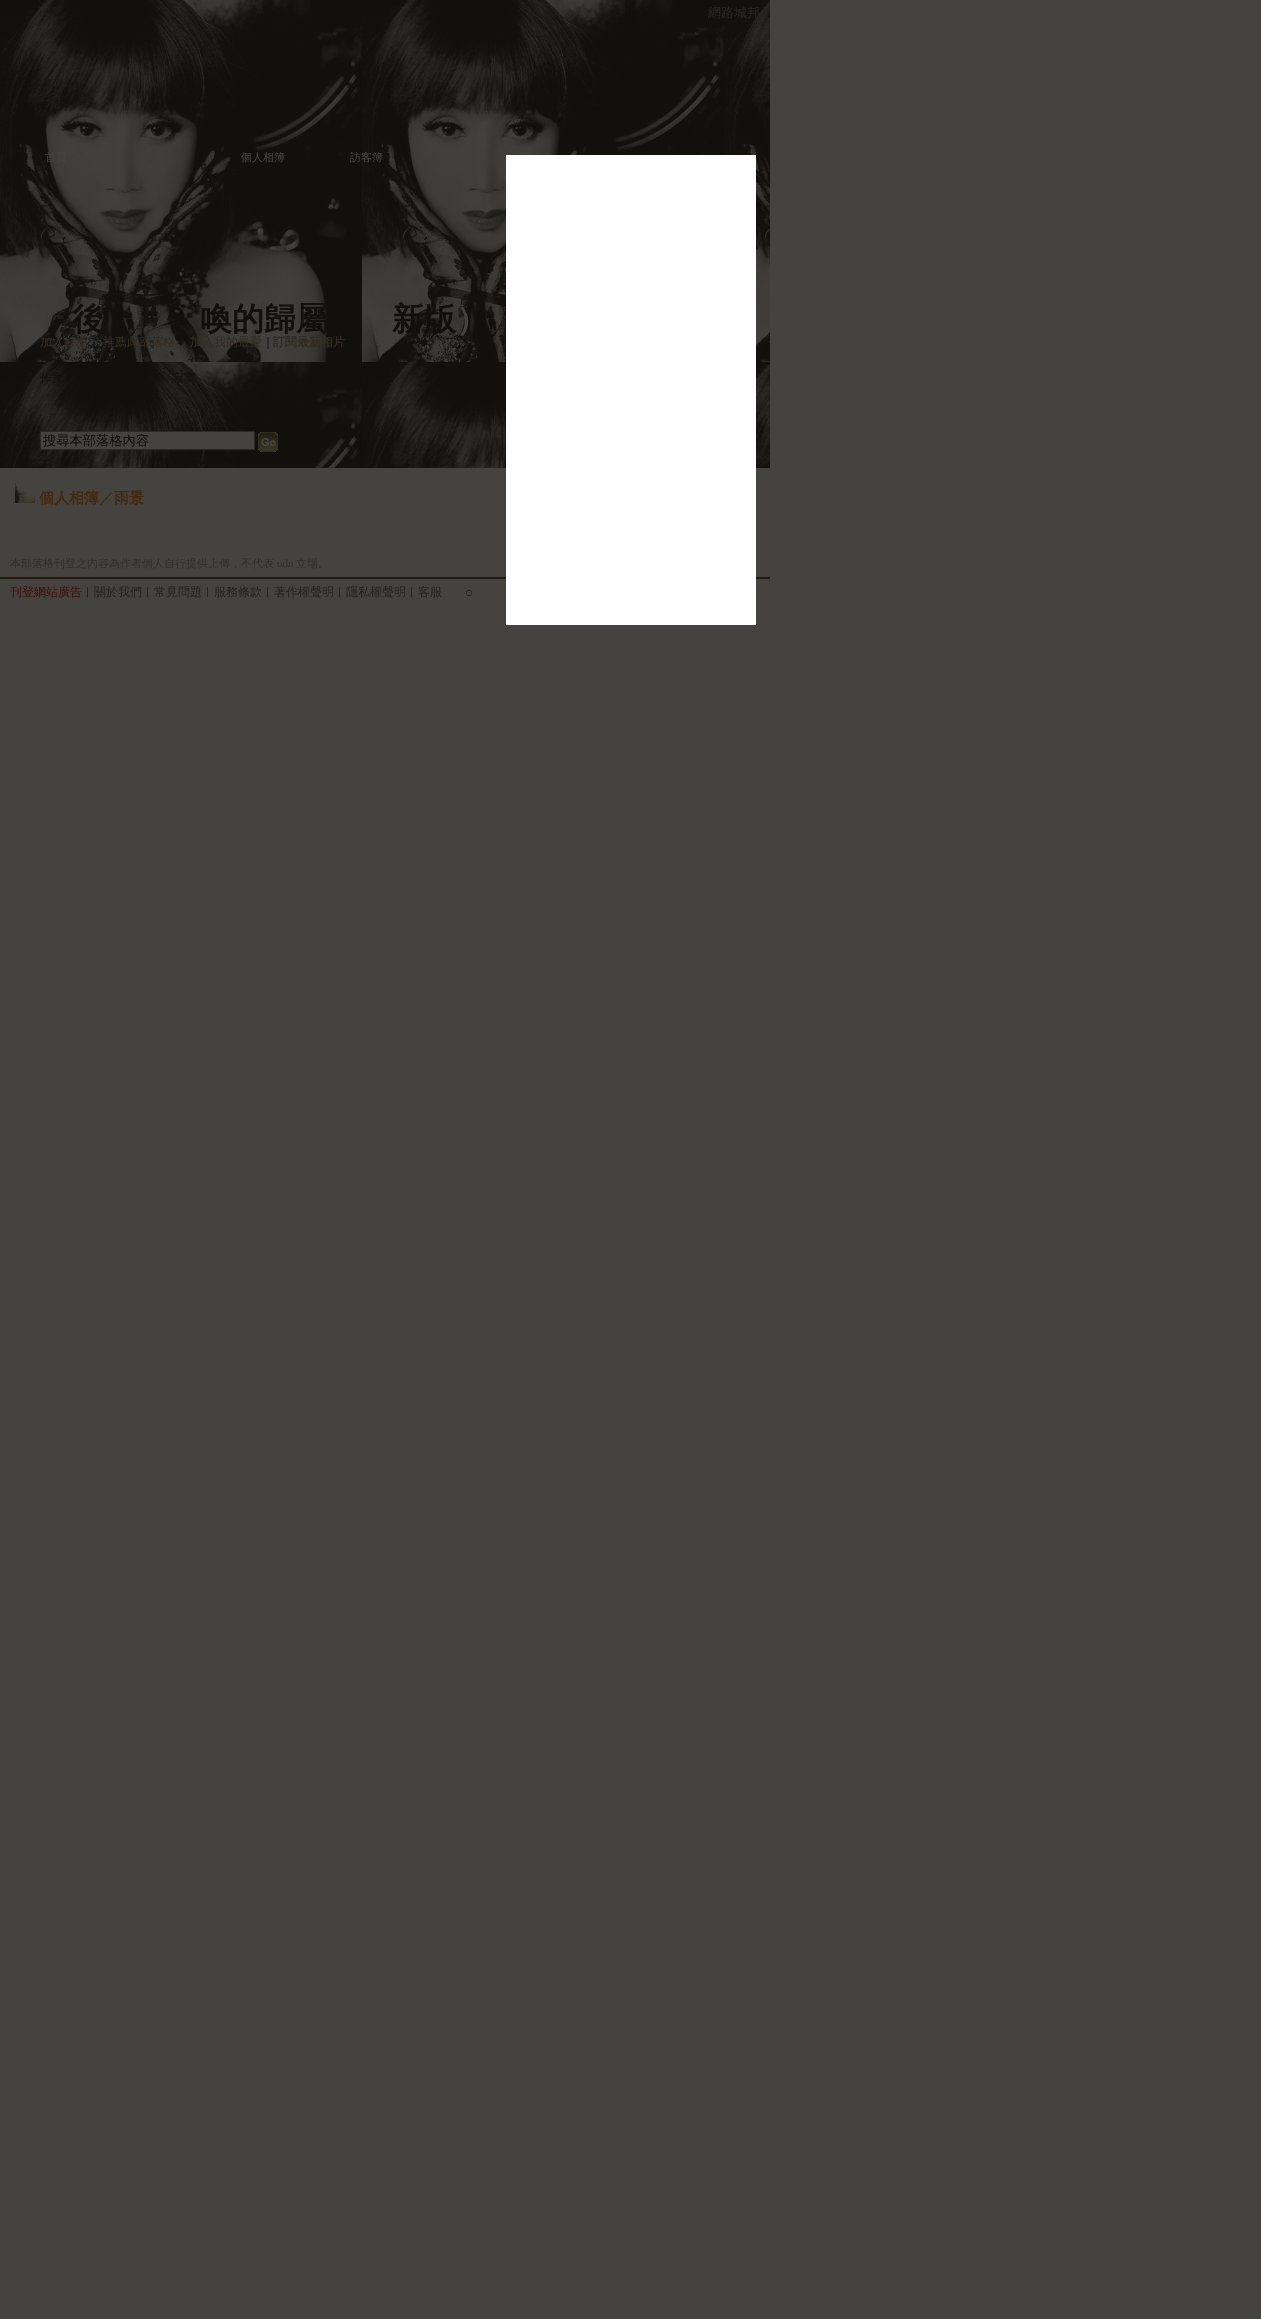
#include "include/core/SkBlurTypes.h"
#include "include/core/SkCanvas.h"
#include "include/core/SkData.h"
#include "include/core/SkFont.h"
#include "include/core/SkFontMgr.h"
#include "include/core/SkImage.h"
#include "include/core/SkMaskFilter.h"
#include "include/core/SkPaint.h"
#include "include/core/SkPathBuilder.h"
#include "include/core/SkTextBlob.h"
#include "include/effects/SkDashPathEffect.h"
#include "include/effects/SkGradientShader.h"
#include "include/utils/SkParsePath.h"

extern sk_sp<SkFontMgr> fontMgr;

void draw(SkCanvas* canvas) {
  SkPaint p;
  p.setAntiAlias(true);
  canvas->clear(SkColorSetRGB(68, 67, 64));
  canvas->drawImageRect(SkImages::DeferredFromEncodedData(SkData::MakeFromFileName("images/1.png")), SkRect::MakeLTRB(0, 0, 770, 468), SkSamplingOptions());
  p.setColor(SkColorSetRGB(68, 67, 64));
  canvas->drawRect(SkRect::MakeLTRB(40.5f, 431.5f, 254.5f, 449.5f), p);
  p.setStyle(SkPaint::kStroke_Style);
  p.setStrokeWidth(1);
  p.setColor(SkColorSetRGB(42, 42, 38));
  canvas->drawRect(SkRect::MakeLTRB(40.5f, 431.5f, 254.5f, 449.5f), p);
  canvas->drawImageRect(SkImages::DeferredFromEncodedData(SkData::MakeFromFileName("images/2.png")), SkRect::MakeLTRB(258, 432, 278, 452), SkSamplingOptions());
  canvas->drawImageRect(SkImages::DeferredFromEncodedData(SkData::MakeFromFileName("images/3.png")), SkRect::MakeLTRB(15, 483, 35, 503), SkSamplingOptions());
  p.setStyle(SkPaint::kFill_Style);
  p.setColor(SkColorSetRGB(36, 25, 13));
  canvas->drawRect(SkRect::MakeLTRB(0, 577, 770, 579), p);
  p.setStyle(SkPaint::kStroke_Style);
  p.setColor(SkColorSetRGB(40, 40, 36));
  canvas->drawRoundRect(SkRect::MakeLTRB(466.5f, 590.5f, 471.5f, 595.5f), 1.5f, 1.5f, p);
  p.setStyle(SkPaint::kFill_Style);
  p.setColor(SK_ColorWHITE);
  canvas->drawRect(SkRect::MakeLTRB(506, 155, 756, 625), p);
  SkFont font1(fontMgr->matchFamilyStyle("WenQuanYi Zen Hei", SkFontStyle(500, SkFontStyle::kNormal_Width, SkFontStyle::kUpright_Slant)), 13);
  font1.setSubpixel(true);
  p.setColor(SkColorSetRGB(37, 36, 33));
  canvas->drawString("網路城邦", 708, 17, font1, p);
  SkFont font2(fontMgr->matchFamilyStyle("WenQuanYi Zen Hei", SkFontStyle(500, SkFontStyle::kNormal_Width, SkFontStyle::kUpright_Slant)), 11);
  font2.setSubpixel(true);
  p.setColor(SkColorSetRGB(68, 67, 64));
  canvas->drawString("首頁", 45, 161, font2, p);
  canvas->drawString("個人相簿", 241, 161, font2, p);
  canvas->drawString("訪客簿", 350, 161, font2, p);
  SkFont font3(fontMgr->matchFamilyStyle("WenQuanYi Zen Hei", SkFontStyle::Bold()), 32);
  font3.setSubpixel(true);
  p.setColor(SkColorSetRGB(17, 16, 13));
  canvas->drawString("後", 72, 330, font3, p);
  canvas->drawString("喚的歸屬", 200, 330, font3, p);
  canvas->drawString("新版", 392, 330, font3, p);
  p.setColor(SkColorSetRGB(68, 67, 64));
  canvas->drawString("）", 456, 330, font3, p);
  SkFont font4(fontMgr->matchFamilyStyle("WenQuanYi Zen Hei", SkFontStyle(500, SkFontStyle::kNormal_Width, SkFontStyle::kUpright_Slant)), 12);
  font4.setSubpixel(true);
  p.setColor(SkColorSetRGB(49, 42, 32));
  canvas->drawString("加入好友", 40, 346, font4, p);
  p.setColor(SkColorSetRGB(17, 16, 13));
  canvas->drawString("｜", 88, 346, font4, p);
  p.setColor(SkColorSetRGB(49, 42, 32));
  canvas->drawString("推薦此部落格", 103, 346, font4, p);
  canvas->drawString("加入我的最愛", 190, 346, font4, p);
  p.setColor(SkColorSetRGB(17, 16, 13));
  canvas->drawString("｜", 262, 346, font4, p);
  SkFont font5(fontMgr->matchFamilyStyle("WenQuanYi Zen Hei", SkFontStyle::Bold()), 12);
  font5.setSubpixel(true);
  p.setColor(SkColorSetRGB(49, 42, 32));
  canvas->drawString("訂閱最新相片", 273, 346, font5, p);
  p.setColor(SkColorSetRGB(17, 16, 13));
  canvas->drawString("作家", 40, 382, font4, p);
  canvas->drawString("寂寞", 172, 382, font4, p);
  SkFont font6(fontMgr->matchFamilyStyle("WenQuanYi Zen Hei", SkFontStyle(500, SkFontStyle::kNormal_Width, SkFontStyle::kUpright_Slant)), 13.25f);
  font6.setSubpixel(true);
  canvas->drawString("搜尋本部落格內容", 43, 445, font6, p);
  SkFont font7(fontMgr->matchFamilyStyle("WenQuanYi Zen Hei", SkFontStyle::Bold()), 15);
  font7.setSubpixel(true);
  p.setColor(SkColorSetRGB(66, 41, 13));
  canvas->drawString("個人相簿／雨景", 39, 503, font7, p);
  p.setColor(SkColorSetRGB(47, 47, 43));
  canvas->drawString("本部落格刊登之內容為作者個人自行提供上傳，不代表", 10, 567, font2, p);
  SkFont font8(fontMgr->matchFamilyStyle("Liberation Serif", SkFontStyle::Normal()), 11);
  font8.setSubpixel(true);
  canvas->drawString("udn", 277, 567, font8, p);
  canvas->drawString("立場。", 296, 567, font2, p);
  p.setColor(SkColorSetRGB(68, 16, 13));
  canvas->drawString("刊登網站廣告", 10, 596, font4, p);
  p.setColor(SkColorSetRGB(17, 16, 13));
  canvas->drawString("︱", 82, 596, font4, p);
  p.setColor(SkColorSetRGB(37, 36, 33));
  canvas->drawString("關於我們", 94, 596, font4, p);
  p.setColor(SkColorSetRGB(17, 16, 13));
  canvas->drawString("︱", 142, 596, font4, p);
  p.setColor(SkColorSetRGB(37, 36, 33));
  canvas->drawString("常見問題", 154, 596, font4, p);
  p.setColor(SkColorSetRGB(17, 16, 13));
  canvas->drawString("︱", 202, 596, font4, p);
  p.setColor(SkColorSetRGB(37, 36, 33));
  canvas->drawString("服務條款", 214, 596, font4, p);
  p.setColor(SkColorSetRGB(17, 16, 13));
  canvas->drawString("︱", 262, 596, font4, p);
  p.setColor(SkColorSetRGB(37, 36, 33));
  canvas->drawString("著作權聲明", 274, 596, font4, p);
  p.setColor(SkColorSetRGB(17, 16, 13));
  canvas->drawString("︱", 334, 596, font4, p);
  p.setColor(SkColorSetRGB(37, 36, 33));
  canvas->drawString("隱私權聲明", 346, 596, font4, p);
  p.setColor(SkColorSetRGB(17, 16, 13));
  canvas->drawString("︱", 406, 596, font4, p);
  p.setColor(SkColorSetRGB(37, 36, 33));
  canvas->drawString("客服", 418, 596, font4, p);
}
